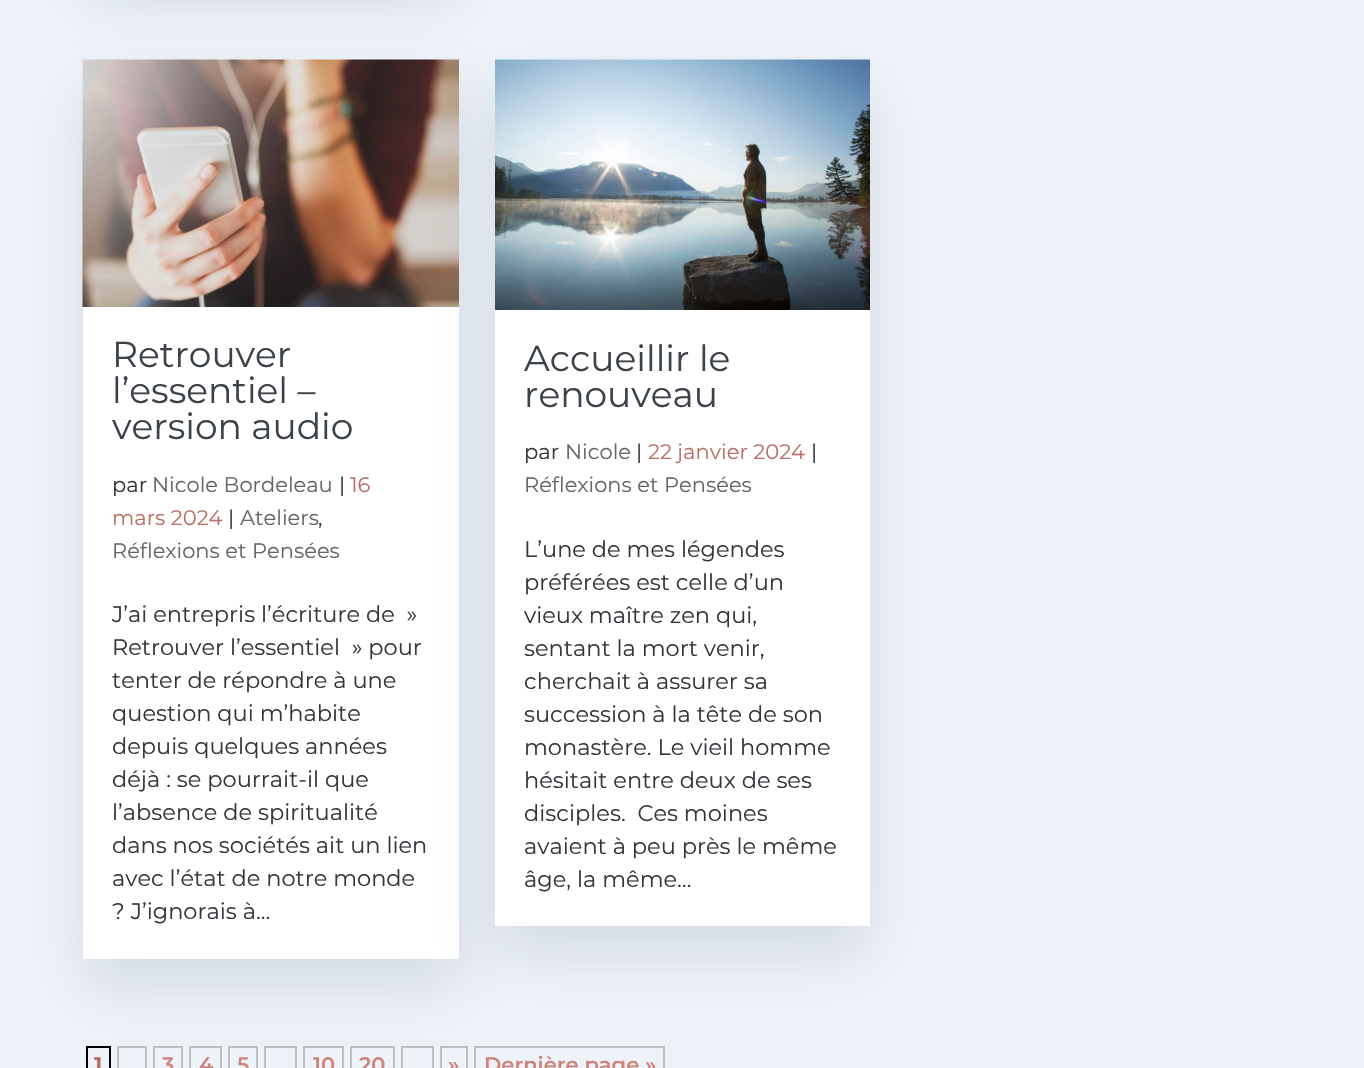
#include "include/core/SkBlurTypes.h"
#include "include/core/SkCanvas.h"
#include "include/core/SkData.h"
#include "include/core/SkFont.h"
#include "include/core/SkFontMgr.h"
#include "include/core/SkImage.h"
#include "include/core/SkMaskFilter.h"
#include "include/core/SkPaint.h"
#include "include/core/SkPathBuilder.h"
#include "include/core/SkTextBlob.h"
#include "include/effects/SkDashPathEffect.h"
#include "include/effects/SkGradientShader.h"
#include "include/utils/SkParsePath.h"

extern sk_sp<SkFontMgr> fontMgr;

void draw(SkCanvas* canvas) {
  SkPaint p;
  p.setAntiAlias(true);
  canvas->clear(SkColorSetRGB(238, 243, 249));
  p.setColor(SkColorSetARGB(51, 99, 115, 133));
  p.setMaskFilter(SkMaskFilter::MakeBlur(kNormal_SkBlurStyle, 30));
  canvas->drawRect(SkRect::MakeLTRB(83, -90, 459, 0), p);
  p.setMaskFilter(nullptr);
  p.setStyle(SkPaint::kStroke_Style);
  p.setStrokeWidth(2);
  p.setColor(SK_ColorBLACK);
  canvas->drawRect(SkRect::MakeLTRB(87, 1047, 110, 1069), p);
  p.setColor(SkColorSetRGB(191, 191, 191));
  canvas->drawRect(SkRect::MakeLTRB(118, 1047, 146, 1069), p);
  canvas->drawRect(SkRect::MakeLTRB(154, 1047, 182, 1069), p);
  canvas->drawRect(SkRect::MakeLTRB(190, 1047, 221, 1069), p);
  canvas->drawRect(SkRect::MakeLTRB(229, 1047, 257, 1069), p);
  canvas->drawRect(SkRect::MakeLTRB(265, 1047, 296, 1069), p);
  canvas->drawRect(SkRect::MakeLTRB(304, 1047, 343, 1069), p);
  canvas->drawRect(SkRect::MakeLTRB(351, 1047, 394, 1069), p);
  canvas->drawRect(SkRect::MakeLTRB(402, 1047, 433, 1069), p);
  canvas->drawRect(SkRect::MakeLTRB(441, 1047, 467, 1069), p);
  canvas->drawRect(SkRect::MakeLTRB(475, 1047, 664, 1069), p);
  p.setStyle(SkPaint::kFill_Style);
  p.setColor(SkColorSetARGB(51, 99, 115, 133));
  p.setMaskFilter(SkMaskFilter::MakeBlur(kNormal_SkBlurStyle, 30));
  canvas->drawRect(SkRect::MakeLTRB(83, 90, 459, 989), p);
  p.setMaskFilter(nullptr);
  p.setColor(SK_ColorWHITE);
  canvas->drawRect(SkRect::MakeLTRB(83, 307, 459, 959), p);
  canvas->drawImageRect(SkImages::DeferredFromEncodedData(SkData::MakeFromFileName("images/1.png")), SkRect::MakeLTRB(82, 59, 459, 307), SkSamplingOptions());
  p.setColor(SkColorSetARGB(51, 99, 115, 133));
  p.setMaskFilter(SkMaskFilter::MakeBlur(kNormal_SkBlurStyle, 30));
  canvas->drawRect(SkRect::MakeLTRB(495, 90, 870, 956), p);
  p.setMaskFilter(nullptr);
  p.setColor(SK_ColorWHITE);
  canvas->drawRect(SkRect::MakeLTRB(495, 310, 870, 926), p);
  canvas->drawImageRect(SkImages::DeferredFromEncodedData(SkData::MakeFromFileName("images/2.png")), SkRect::MakeLTRB(495, 59, 870, 310), SkSamplingOptions());
  SkFont font1(fontMgr->matchFamilyStyle("Montserrat", SkFontStyle::Normal()), 36);
  font1.setSubpixel(true);
  p.setColor(SkColorSetRGB(60, 66, 73));
  canvas->drawString("Retrouver", 112, 367, font1, p);
  canvas->drawString("l’essentiel –", 112, 403, font1, p);
  canvas->drawString("version audio", 112, 439, font1, p);
  SkFont font2(fontMgr->matchFamilyStyle("Montserrat", SkFontStyle::Normal()), 21);
  font2.setSubpixel(true);
  p.setColor(SkColorSetRGB(50, 55, 60));
  canvas->drawString("par", 112, 492, font2, p);
  p.setColor(SkColorSetRGB(102, 102, 102));
  canvas->drawString("Nicole Bordeleau", 152, 492, font2, p);
  p.setColor(SkColorSetRGB(50, 55, 60));
  canvas->drawString("|", 339, 492, font2, p);
  p.setColor(SkColorSetRGB(184, 110, 101));
  canvas->drawString("16", 350, 492, font2, p);
  canvas->drawString("mars 2024", 112, 525, font2, p);
  p.setColor(SkColorSetRGB(50, 55, 60));
  canvas->drawString("|", 228, 525, font2, p);
  p.setColor(SkColorSetRGB(102, 102, 102));
  canvas->drawString("Ateliers", 240, 525, font2, p);
  p.setColor(SkColorSetRGB(50, 55, 60));
  canvas->drawString(",", 318, 525, font2, p);
  p.setColor(SkColorSetRGB(102, 102, 102));
  canvas->drawString("Réflexions et Pensées", 112, 558, font2, p);
  SkFont font3(fontMgr->matchFamilyStyle("Montserrat", SkFontStyle::Normal()), 22.5f);
  font3.setSubpixel(true);
  p.setColor(SkColorSetRGB(50, 55, 60));
  canvas->drawString("J’ai entrepris l’écriture de  »", 112, 622, font3, p);
  canvas->drawString("Retrouver l’essentiel  » pour", 112, 655, font3, p);
  canvas->drawString("tenter de répondre à une", 112, 688, font3, p);
  canvas->drawString("question qui m’habite", 112, 721, font3, p);
  canvas->drawString("depuis quelques années", 112, 754, font3, p);
  canvas->drawString("déjà : se pourrait-il que", 112, 787, font3, p);
  canvas->drawString("l’absence de spiritualité", 112, 820, font3, p);
  canvas->drawString("dans nos sociétés ait un lien", 112, 853, font3, p);
  canvas->drawString("avec l’état de notre monde", 112, 886, font3, p);
  canvas->drawString("? J’ignorais à...", 112, 919, font3, p);
  p.setColor(SkColorSetRGB(60, 66, 73));
  canvas->drawString("Accueillir le", 524, 371, font1, p);
  canvas->drawString("renouveau", 524, 407, font1, p);
  p.setColor(SkColorSetRGB(50, 55, 60));
  canvas->drawString("par", 524, 459, font2, p);
  p.setColor(SkColorSetRGB(102, 102, 102));
  canvas->drawString("Nicole", 565, 459, font2, p);
  p.setColor(SkColorSetRGB(50, 55, 60));
  canvas->drawString("|", 636, 459, font2, p);
  p.setColor(SkColorSetRGB(184, 110, 101));
  canvas->drawString("22 janvier 2024", 648, 459, font2, p);
  p.setColor(SkColorSetRGB(50, 55, 60));
  canvas->drawString("|", 811, 459, font2, p);
  p.setColor(SkColorSetRGB(102, 102, 102));
  canvas->drawString("Réflexions et Pensées", 524, 492, font2, p);
  p.setColor(SkColorSetRGB(50, 55, 60));
  canvas->drawString("L’une de mes légendes", 524, 557, font3, p);
  canvas->drawString("préférées est celle d’un", 524, 590, font3, p);
  canvas->drawString("vieux maître zen qui,", 524, 623, font3, p);
  canvas->drawString("sentant la mort venir,", 524, 656, font3, p);
  canvas->drawString("cherchait à assurer sa", 524, 689, font3, p);
  canvas->drawString("succession à la tête de son", 524, 722, font3, p);
  canvas->drawString("monastère. Le vieil homme", 524, 755, font3, p);
  canvas->drawString("hésitait entre deux de ses", 524, 788, font3, p);
  canvas->drawString("disciples.  Ces moines", 524, 821, font3, p);
  canvas->drawString("avaient à peu près le même", 524, 854, font3, p);
  canvas->drawString("âge, la même...", 524, 887, font3, p);
  SkFont font4(fontMgr->matchFamilyStyle("Montserrat", SkFontStyle::Bold()), 21);
  font4.setSubpixel(true);
  p.setColor(SkColorSetRGB(184, 110, 101));
  canvas->drawString("1", 94, 1072, font4, p);
  SkFont font5(fontMgr->matchFamilyStyle("Montserrat", SkFontStyle(600, SkFontStyle::kNormal_Width, SkFontStyle::kUpright_Slant)), 21);
  font5.setSubpixel(true);
  p.setColor(SkColorSetRGB(206, 132, 123));
  canvas->drawString("3", 162, 1072, font5, p);
  canvas->drawString("4", 199, 1072, font5, p);
  canvas->drawString("5", 237, 1072, font5, p);
  canvas->drawString("10", 313, 1072, font5, p);
  canvas->drawString("20", 359, 1072, font5, p);
  canvas->drawString("»", 448, 1072, font5, p);
  canvas->drawString("Dernière page »", 484, 1072, font5, p);
}
